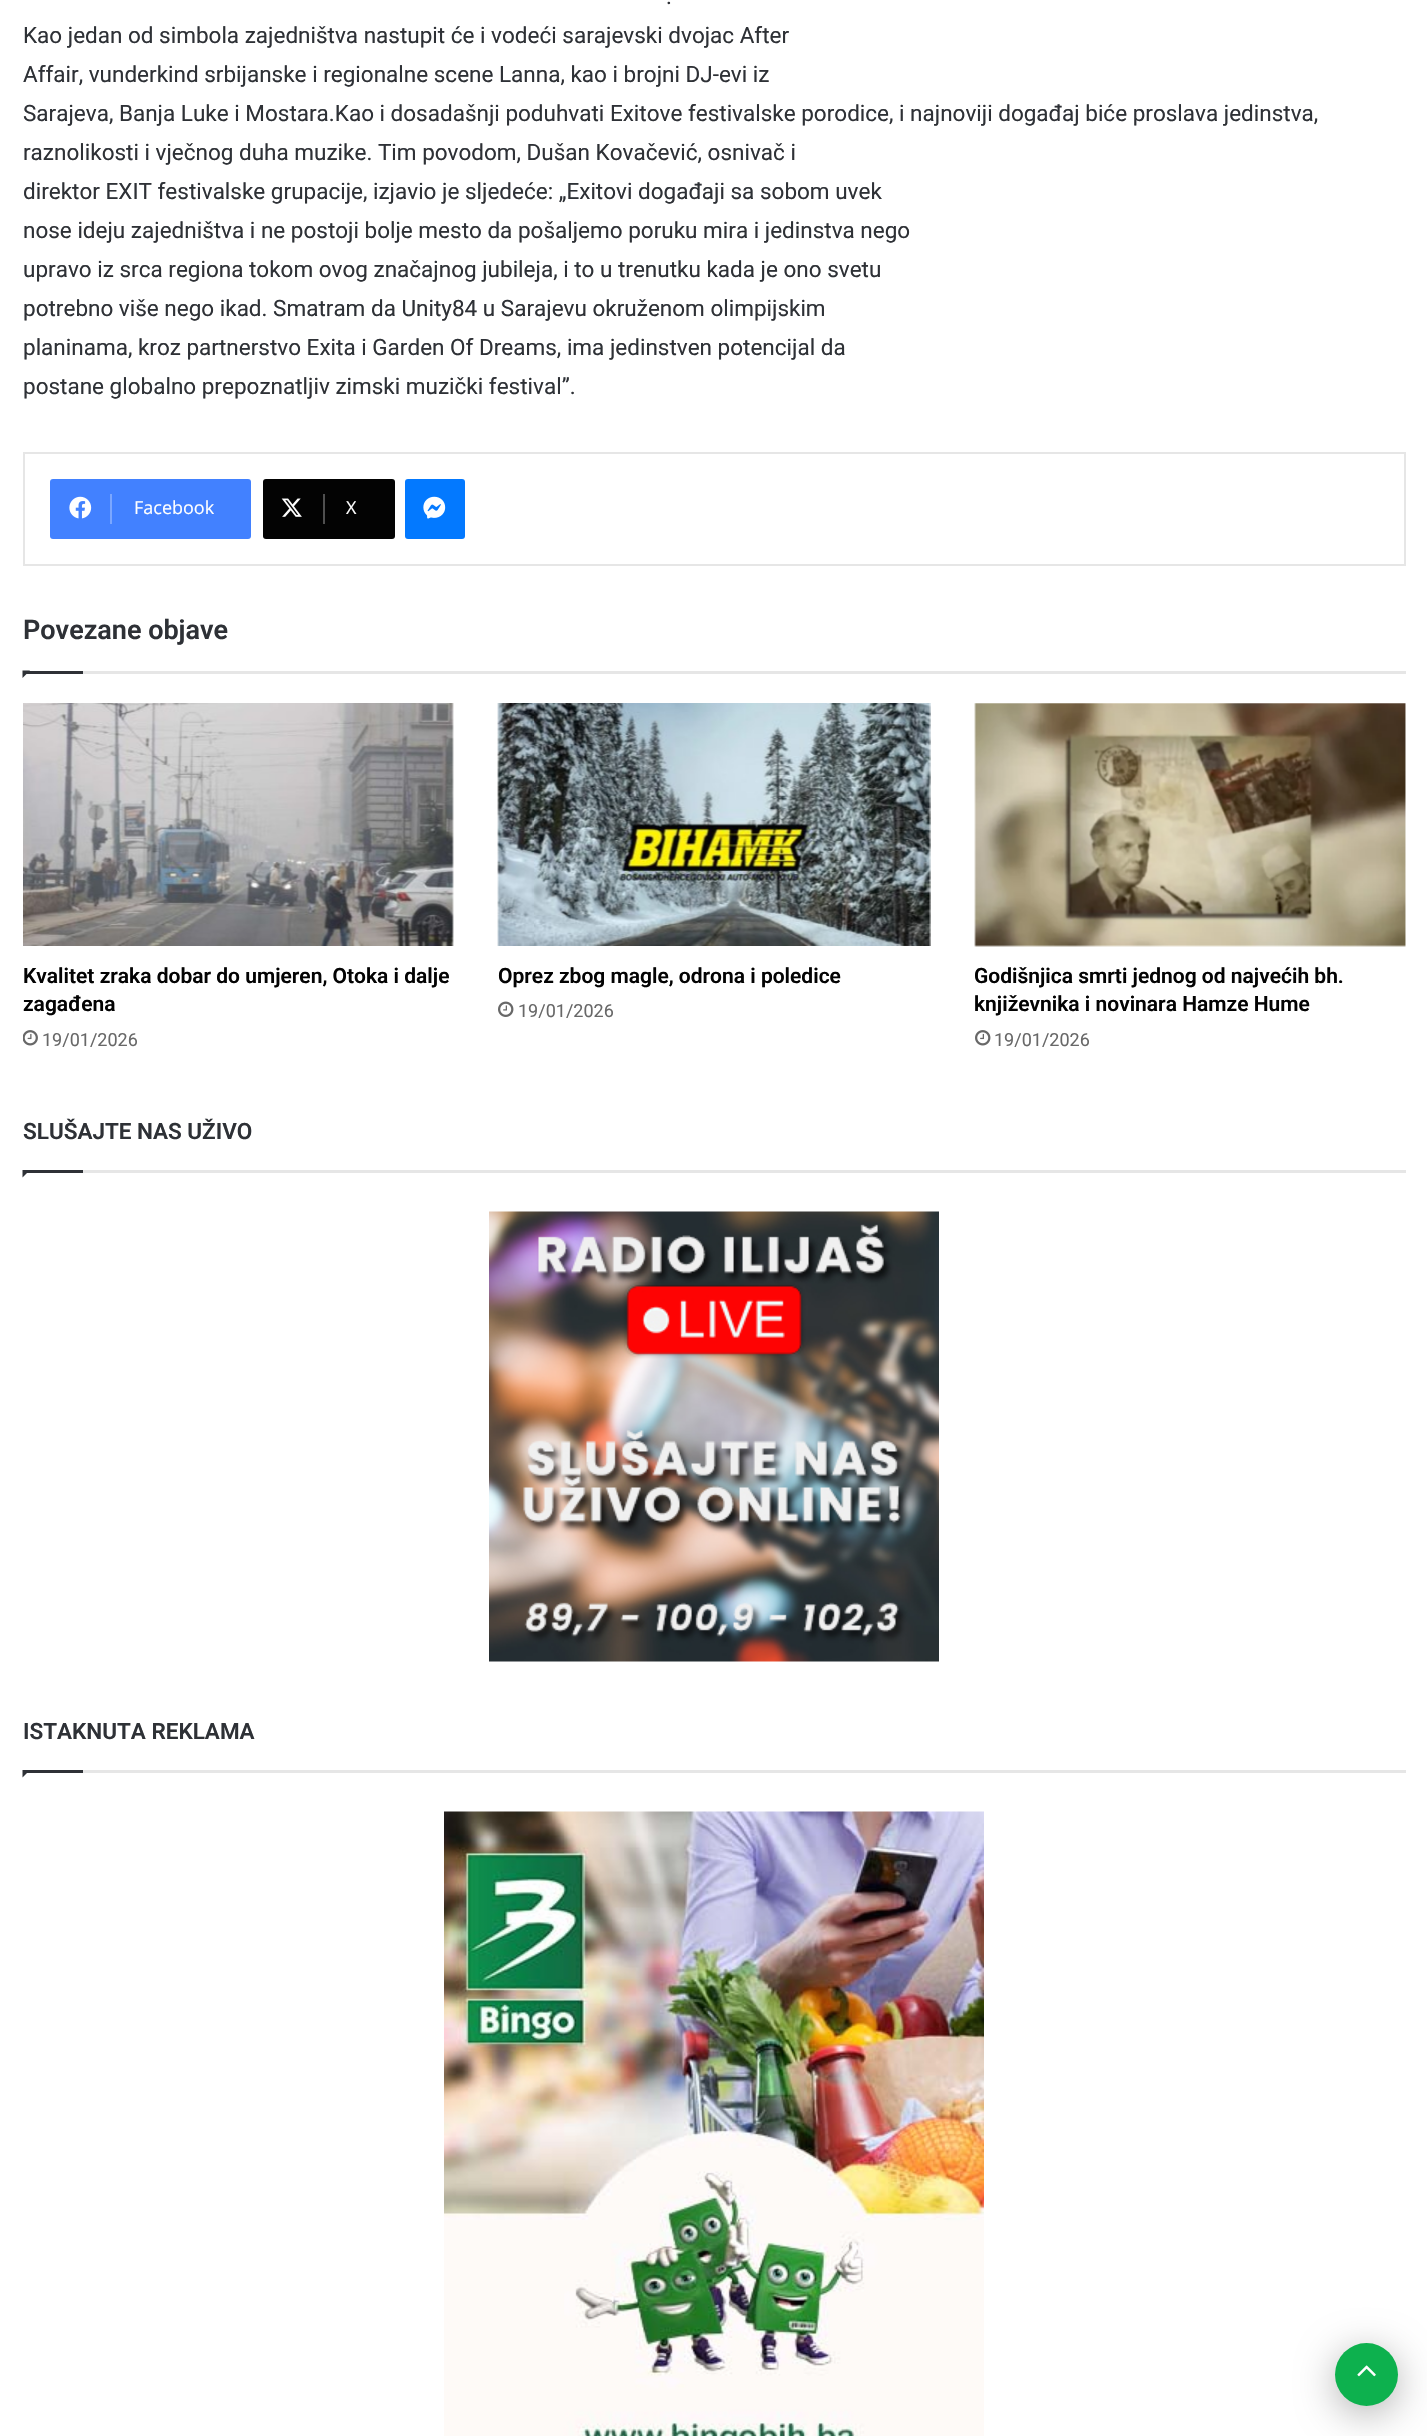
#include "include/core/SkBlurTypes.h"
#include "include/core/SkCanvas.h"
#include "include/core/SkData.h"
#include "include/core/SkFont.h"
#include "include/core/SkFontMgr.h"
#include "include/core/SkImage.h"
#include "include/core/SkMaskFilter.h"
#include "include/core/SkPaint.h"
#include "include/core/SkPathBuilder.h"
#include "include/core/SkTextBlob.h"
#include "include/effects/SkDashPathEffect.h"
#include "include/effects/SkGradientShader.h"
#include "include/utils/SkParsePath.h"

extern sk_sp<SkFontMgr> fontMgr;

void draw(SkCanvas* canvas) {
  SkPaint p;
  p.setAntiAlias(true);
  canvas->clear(SK_ColorWHITE);
  p.setStyle(SkPaint::kStroke_Style);
  p.setStrokeWidth(2);
  p.setColor(SkColorSetRGB(230, 230, 230));
  canvas->drawRect(SkRect::MakeLTRB(24, 453, 1405, 565), p);
  p.setStyle(SkPaint::kFill_Style);
  p.setColor(SkColorSetRGB(66, 129, 255));
  canvas->drawRoundRect(SkRect::MakeLTRB(50, 479, 251, 539), 3, 3, p);
  canvas->drawImageRect(SkImages::DeferredFromEncodedData(SkData::MakeFromFileName("images/1.png")), SkRect::MakeLTRB(69, 496, 92, 519), SkSamplingOptions());
  p.setColor(SkColorSetRGB(123, 167, 255));
  canvas->drawRect(SkRect::MakeLTRB(110, 494, 112, 524), p);
  p.setColor(SkColorSetRGB(3, 3, 3));
  canvas->drawRoundRect(SkRect::MakeLTRB(263, 479, 395, 539), 3, 3, p);
  canvas->drawImageRect(SkImages::DeferredFromEncodedData(SkData::MakeFromFileName("images/2.png")), SkRect::MakeLTRB(281, 498, 302, 517), SkSamplingOptions());
  p.setColor(SkColorSetRGB(79, 79, 79));
  canvas->drawRect(SkRect::MakeLTRB(323, 494, 325, 524), p);
  p.setColor(SkColorSetRGB(3, 121, 255));
  canvas->drawRoundRect(SkRect::MakeLTRB(405, 479, 465, 539), 3, 3, p);
  canvas->drawImageRect(SkImages::DeferredFromEncodedData(SkData::MakeFromFileName("images/3.png")), SkRect::MakeLTRB(423, 496, 446, 519), SkSamplingOptions());
  p.setColor(SkColorSetRGB(230, 230, 230));
  canvas->drawRect(SkRect::MakeLTRB(83, 671, 1406, 674), p);
  p.setColor(SkColorSetRGB(46, 49, 54));
  canvas->drawPath(SkPathBuilder().moveTo(22.5f, 670.5f).lineTo(30, 670.5f).lineTo(22.5f, 678).close().detach(), p);
  canvas->drawRect(SkRect::MakeLTRB(23, 671, 83, 674), p);
  canvas->drawImageRect(SkImages::DeferredFromEncodedData(SkData::MakeFromFileName("images/4.png")), SkRect::MakeLTRB(23, 703, 454, 946), SkSamplingOptions());
  canvas->drawImageRect(SkImages::DeferredFromEncodedData(SkData::MakeFromFileName("images/5.png")), SkRect::MakeLTRB(23, 1030, 38, 1046), SkSamplingOptions());
  canvas->drawImageRect(SkImages::DeferredFromEncodedData(SkData::MakeFromFileName("images/6.png")), SkRect::MakeLTRB(497, 703, 931, 946), SkSamplingOptions());
  canvas->drawImageRect(SkImages::DeferredFromEncodedData(SkData::MakeFromFileName("images/7.png")), SkRect::MakeLTRB(498, 1001, 514, 1017), SkSamplingOptions());
  canvas->drawImageRect(SkImages::DeferredFromEncodedData(SkData::MakeFromFileName("images/8.png")), SkRect::MakeLTRB(974, 703, 1406, 947), SkSamplingOptions());
  canvas->drawImageRect(SkImages::DeferredFromEncodedData(SkData::MakeFromFileName("images/9.png")), SkRect::MakeLTRB(975, 1030, 991, 1046), SkSamplingOptions());
  p.setColor(SkColorSetRGB(230, 230, 230));
  canvas->drawRect(SkRect::MakeLTRB(83, 1170, 1406, 1173), p);
  p.setColor(SkColorSetRGB(46, 49, 54));
  canvas->drawPath(SkPathBuilder().moveTo(22.5f, 1170).lineTo(30, 1170).lineTo(22.5f, 1177.5f).close().detach(), p);
  canvas->drawRect(SkRect::MakeLTRB(23, 1170, 83, 1173), p);
  canvas->drawImageRect(SkImages::DeferredFromEncodedData(SkData::MakeFromFileName("images/10.png")), SkRect::MakeLTRB(489, 1211, 939, 1662), SkSamplingOptions());
  p.setColor(SkColorSetRGB(230, 230, 230));
  canvas->drawRect(SkRect::MakeLTRB(83, 1770, 1406, 1773), p);
  p.setColor(SkColorSetRGB(46, 49, 54));
  canvas->drawPath(SkPathBuilder().moveTo(22.5f, 1770).lineTo(30, 1770).lineTo(22.5f, 1777.5f).close().detach(), p);
  canvas->drawRect(SkRect::MakeLTRB(23, 1770, 83, 1773), p);
  canvas->drawImageRect(SkImages::DeferredFromEncodedData(SkData::MakeFromFileName("images/11.png")), SkRect::MakeLTRB(444, 1811, 984, 2436), SkSamplingOptions());
  p.setColor(SkColorSetARGB(77, 0, 0, 0));
  p.setMaskFilter(SkMaskFilter::MakeBlur(kNormal_SkBlurStyle, 19));
  canvas->drawRoundRect(SkRect::MakeLTRB(1335, 2351, 1398, 2414), 31.5f, 31.5f, p);
  p.setMaskFilter(nullptr);
  p.setColor(SkColorSetRGB(13, 177, 78));
  canvas->drawCircle(1366.5f, 2374.5f, 31.5f, p);
  canvas->drawImageRect(SkImages::DeferredFromEncodedData(SkData::MakeFromFileName("images/12.png")), SkRect::MakeLTRB(1357, 2365, 1376, 2377), SkSamplingOptions());
  SkFont font1(fontMgr->matchFamilyStyle("Roboto", SkFontStyle::Normal()), 22.5f);
  font1.setSubpixel(true);
  p.setColor(SkColorSetRGB(46, 49, 54));
  canvas->drawString(".", 666, 4, font1, p);
  canvas->drawString("Kao jedan od simbola zajedništva nastupit će i vodeći sarajevski dvojac After", 23, 43, font1, p);
  canvas->drawString("Affair, vunderkind srbijanske i regionalne scene Lanna, kao i brojni DJ-evi iz", 23, 82, font1, p);
  canvas->drawString("Sarajeva, Banja Luke i Mostara.Kao i dosadašnji poduhvati Exitove festivalske porodice, i najnoviji događaj biće proslava jedinstva,", 23, 121, font1, p);
  canvas->drawString("raznolikosti i vječnog duha muzike. Tim povodom, Dušan Kovačević, osnivač i", 23, 160, font1, p);
  canvas->drawString("direktor EXIT festivalske grupacije, izjavio je sljedeće: „Exitovi događaji sa sobom uvek", 23, 199, font1, p);
  canvas->drawString("nose ideju zajedništva i ne postoji bolje mesto da pošaljemo poruku mira i jedinstva nego", 23, 238, font1, p);
  canvas->drawString("upravo iz srca regiona tokom ovog značajnog jubileja, i to u trenutku kada je ono svetu", 23, 277, font1, p);
  canvas->drawString("potrebno više nego ikad. Smatram da Unity84 u Sarajevu okruženom olimpijskim", 23, 316, font1, p);
  canvas->drawString("planinama, kroz partnerstvo Exita i Garden Of Dreams, ima jedinstven potencijal da", 23, 355, font1, p);
  canvas->drawString("postane globalno prepoznatljiv zimski muzički festival”.", 23, 394, font1, p);
  SkFont font2(fontMgr->matchFamilyStyle("Open Sans", SkFontStyle::Normal()), 18);
  font2.setSubpixel(true);
  p.setColor(SK_ColorWHITE);
  canvas->drawString("Facebook", 134, 514, font2, p);
  canvas->drawString("X", 346, 514, font2, p);
  SkFont font3(fontMgr->matchFamilyStyle("Roboto", SkFontStyle(600, SkFontStyle::kNormal_Width, SkFontStyle::kUpright_Slant)), 27);
  font3.setSubpixel(true);
  p.setColor(SkColorSetRGB(46, 49, 54));
  canvas->drawString("Povezane objave", 23, 639, font3, p);
  SkFont font4(fontMgr->matchFamilyStyle("Roboto", SkFontStyle(600, SkFontStyle::kNormal_Width, SkFontStyle::kUpright_Slant)), 21);
  font4.setSubpixel(true);
  p.setColor(SkColorSetRGB(3, 3, 3));
  canvas->drawString("Kvalitet zraka dobar do umjeren, Otoka i dalje", 23, 983, font4, p);
  canvas->drawString("zagađena", 23, 1011, font4, p);
  SkFont font5(fontMgr->matchFamilyStyle("Roboto", SkFontStyle::Normal()), 18);
  font5.setSubpixel(true);
  p.setColor(SkColorSetRGB(104, 104, 104));
  canvas->drawString("19/01/2026", 42, 1046, font5, p);
  p.setColor(SkColorSetRGB(3, 3, 3));
  canvas->drawString("Oprez zbog magle, odrona i poledice", 498, 983, font4, p);
  p.setColor(SkColorSetRGB(104, 104, 104));
  canvas->drawString("19/01/2026", 518, 1017, font5, p);
  p.setColor(SkColorSetRGB(3, 3, 3));
  canvas->drawString("Godišnjica smrti jednog od najvećih bh.", 974, 983, font4, p);
  canvas->drawString("književnika i novinara Hamze Hume", 974, 1011, font4, p);
  p.setColor(SkColorSetRGB(104, 104, 104));
  canvas->drawString("19/01/2026", 994, 1046, font5, p);
  SkFont font6(fontMgr->matchFamilyStyle("Roboto", SkFontStyle(600, SkFontStyle::kNormal_Width, SkFontStyle::kUpright_Slant)), 22.5f);
  font6.setSubpixel(true);
  p.setColor(SkColorSetRGB(46, 49, 54));
  canvas->drawString("SLUŠAJTE NAS UŽIVO", 23, 1139, font6, p);
  canvas->drawString("ISTAKNUTA REKLAMA", 23, 1739, font6, p);
}
